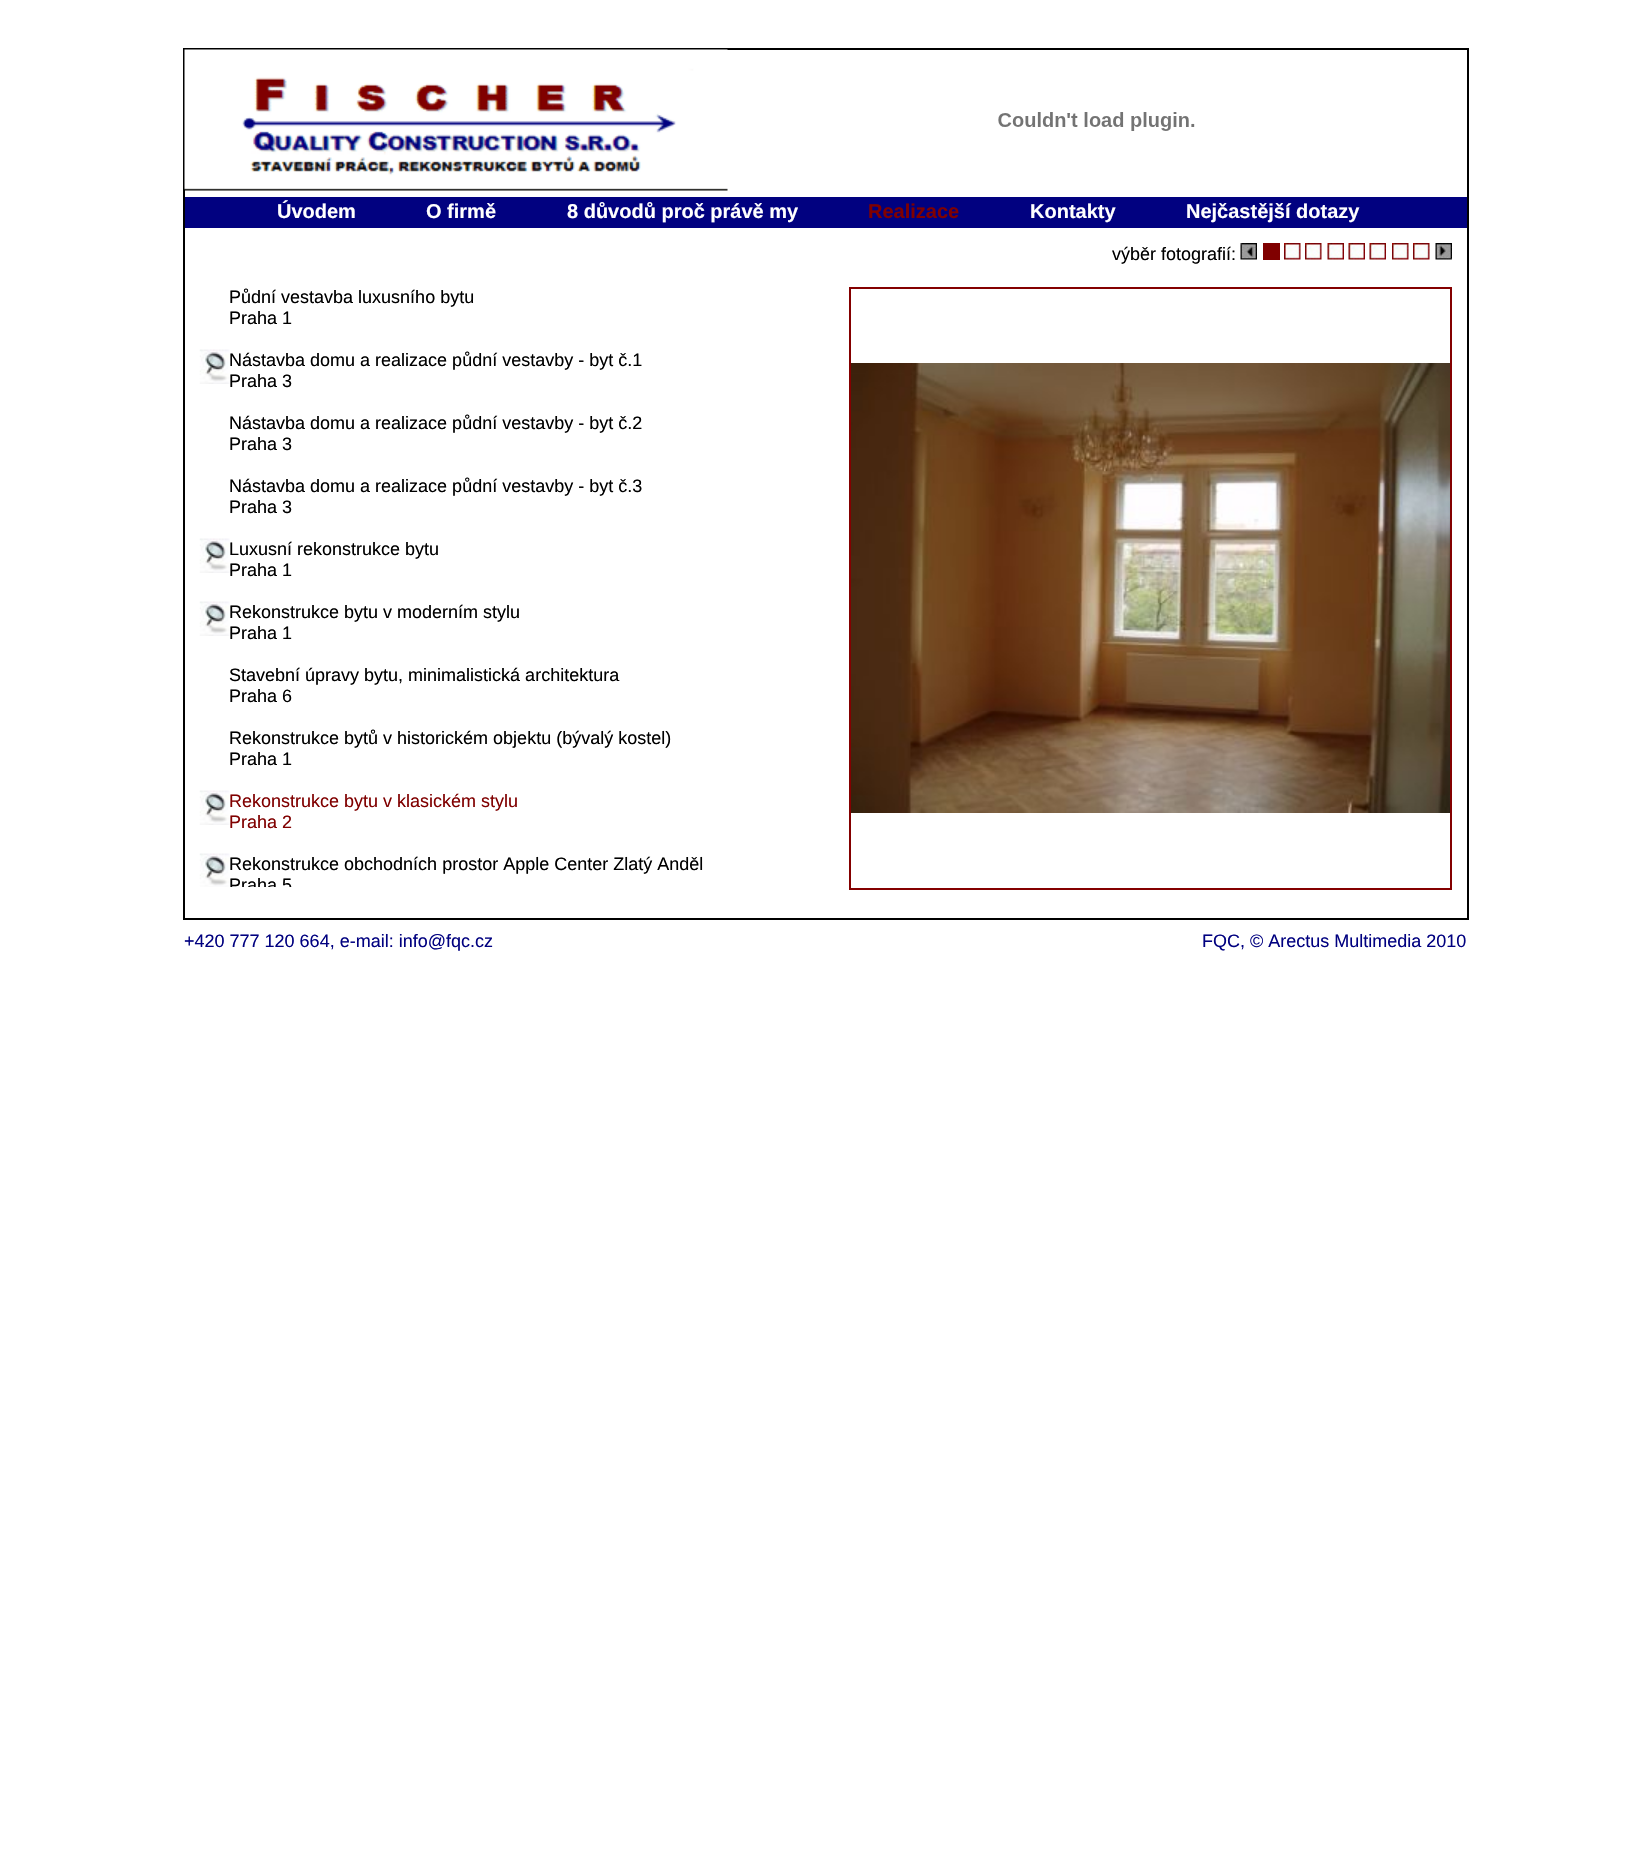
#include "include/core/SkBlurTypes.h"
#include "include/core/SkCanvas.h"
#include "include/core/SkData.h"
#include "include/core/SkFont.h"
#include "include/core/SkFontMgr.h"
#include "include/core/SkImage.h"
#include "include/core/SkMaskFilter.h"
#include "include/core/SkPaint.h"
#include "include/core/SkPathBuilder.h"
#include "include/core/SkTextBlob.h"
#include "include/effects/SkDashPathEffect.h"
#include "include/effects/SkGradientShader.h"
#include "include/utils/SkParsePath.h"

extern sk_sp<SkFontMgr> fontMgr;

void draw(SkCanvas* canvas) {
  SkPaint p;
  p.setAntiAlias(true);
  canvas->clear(SK_ColorWHITE);
  p.setStyle(SkPaint::kStroke_Style);
  p.setStrokeWidth(2);
  p.setColor(SK_ColorBLACK);
  canvas->drawRect(SkRect::MakeLTRB(184, 49, 1468, 919), p);
  canvas->drawImageRect(SkImages::DeferredFromEncodedData(SkData::MakeFromFileName("images/1.png")), SkRect::MakeLTRB(184, 49, 728, 191), SkSamplingOptions());
  canvas->drawImageRect(SkImages::DeferredFromEncodedData(SkData::MakeFromFileName("images/2.png")), SkRect::MakeLTRB(998, 112, 1195, 131), SkSamplingOptions());
  p.setStyle(SkPaint::kFill_Style);
  p.setColor(SkColorSetRGB(1, 1, 128));
  canvas->drawRect(SkRect::MakeLTRB(185, 197, 1467, 228), p);
  canvas->drawImageRect(SkImages::DeferredFromEncodedData(SkData::MakeFromFileName("images/3.png")), SkRect::MakeLTRB(1240, 243, 1257, 260), SkSamplingOptions());
  p.setColor(SkColorSetRGB(128, 0, 0));
  canvas->drawRect(SkRect::MakeLTRB(1263, 243, 1280, 260), p);
  canvas->drawImageRect(SkImages::DeferredFromEncodedData(SkData::MakeFromFileName("images/4.png")), SkRect::MakeLTRB(1284, 243, 1301, 260), SkSamplingOptions());
  canvas->drawImageRect(SkImages::DeferredFromEncodedData(SkData::MakeFromFileName("images/5.png")), SkRect::MakeLTRB(1305, 243, 1322, 260), SkSamplingOptions());
  canvas->drawImageRect(SkImages::DeferredFromEncodedData(SkData::MakeFromFileName("images/6.png")), SkRect::MakeLTRB(1327, 243, 1344, 260), SkSamplingOptions());
  canvas->drawImageRect(SkImages::DeferredFromEncodedData(SkData::MakeFromFileName("images/6.png")), SkRect::MakeLTRB(1348, 243, 1365, 260), SkSamplingOptions());
  canvas->drawImageRect(SkImages::DeferredFromEncodedData(SkData::MakeFromFileName("images/6.png")), SkRect::MakeLTRB(1369, 243, 1386, 260), SkSamplingOptions());
  canvas->drawImageRect(SkImages::DeferredFromEncodedData(SkData::MakeFromFileName("images/5.png")), SkRect::MakeLTRB(1392, 243, 1409, 260), SkSamplingOptions());
  canvas->drawImageRect(SkImages::DeferredFromEncodedData(SkData::MakeFromFileName("images/5.png")), SkRect::MakeLTRB(1413, 243, 1430, 260), SkSamplingOptions());
  canvas->drawImageRect(SkImages::DeferredFromEncodedData(SkData::MakeFromFileName("images/7.png")), SkRect::MakeLTRB(1435, 243, 1452, 260), SkSamplingOptions());
  canvas->drawImageRect(SkImages::DeferredFromEncodedData(SkData::MakeFromFileName("images/8.png")), SkRect::MakeLTRB(199, 349, 230, 384), SkSamplingOptions());
  canvas->drawImageRect(SkImages::DeferredFromEncodedData(SkData::MakeFromFileName("images/8.png")), SkRect::MakeLTRB(199, 538, 230, 573), SkSamplingOptions());
  canvas->drawImageRect(SkImages::DeferredFromEncodedData(SkData::MakeFromFileName("images/8.png")), SkRect::MakeLTRB(199, 601, 230, 636), SkSamplingOptions());
  canvas->drawImageRect(SkImages::DeferredFromEncodedData(SkData::MakeFromFileName("images/8.png")), SkRect::MakeLTRB(199, 790, 230, 825), SkSamplingOptions());
  canvas->drawImageRect(SkImages::DeferredFromEncodedData(SkData::MakeFromFileName("images/9.png")), SkRect::MakeLTRB(199, 853, 230, 887), SkSamplingOptions());
  canvas->drawImageRect(SkImages::DeferredFromEncodedData(SkData::MakeFromFileName("images/10.png")), SkRect::MakeLTRB(851, 363, 1450, 813), SkSamplingOptions());
  p.setStyle(SkPaint::kStroke_Style);
  p.setColor(SkColorSetRGB(132, 0, 0));
  canvas->drawRect(SkRect::MakeLTRB(850, 288, 1451, 889), p);
  SkFont font1(fontMgr->matchFamilyStyle("Liberation Sans", SkFontStyle::Bold()), 20);
  font1.setSubpixel(true);
  p.setStyle(SkPaint::kFill_Style);
  p.setColor(SK_ColorWHITE);
  canvas->drawString("Úvodem", 277, 218, font1, p);
  canvas->drawString("O firmě", 426, 218, font1, p);
  canvas->drawString("8 důvodů proč právě my", 567, 218, font1, p);
  p.setColor(SkColorSetRGB(128, 0, 0));
  canvas->drawString("Realizace", 868, 218, font1, p);
  p.setColor(SK_ColorWHITE);
  canvas->drawString("Kontakty", 1030, 218, font1, p);
  canvas->drawString("Nejčastější dotazy", 1186, 218, font1, p);
  SkFont font2(fontMgr->matchFamilyStyle("Liberation Sans", SkFontStyle::Normal()), 18);
  font2.setSubpixel(true);
  p.setColor(SK_ColorBLACK);
  canvas->drawString("výběr fotografií:", 1112, 260, font2, p);
  canvas->drawString("Půdní vestavba luxusního bytu", 229, 303, font2, p);
  canvas->drawString("Praha 1", 229, 324, font2, p);
  canvas->drawString("Nástavba domu a realizace půdní vestavby - byt č.1", 229, 366, font2, p);
  canvas->drawString("Praha 3", 229, 387, font2, p);
  canvas->drawString("Nástavba domu a realizace půdní vestavby - byt č.2", 229, 429, font2, p);
  canvas->drawString("Praha 3", 229, 450, font2, p);
  canvas->drawString("Nástavba domu a realizace půdní vestavby - byt č.3", 229, 492, font2, p);
  canvas->drawString("Praha 3", 229, 513, font2, p);
  canvas->drawString("Luxusní rekonstrukce bytu", 229, 555, font2, p);
  canvas->drawString("Praha 1", 229, 576, font2, p);
  canvas->drawString("Rekonstrukce bytu v moderním stylu", 229, 618, font2, p);
  canvas->drawString("Praha 1", 229, 639, font2, p);
  canvas->drawString("Stavební úpravy bytu, minimalistická architektura", 229, 681, font2, p);
  canvas->drawString("Praha 6", 229, 702, font2, p);
  canvas->drawString("Rekonstrukce bytů v historickém objektu (bývalý kostel)", 229, 744, font2, p);
  canvas->drawString("Praha 1", 229, 765, font2, p);
  p.setColor(SkColorSetRGB(128, 0, 0));
  canvas->drawString("Rekonstrukce bytu v klasickém stylu", 229, 807, font2, p);
  canvas->drawString("Praha 2", 229, 828, font2, p);
  p.setColor(SK_ColorBLACK);
  canvas->drawString("Rekonstrukce obchodních prostor Apple Center Zlatý Anděl", 229, 870, font2, p);
  canvas->save();
  canvas->clipRect(SkRect::MakeLTRB(200, 287, 845, 887));
  canvas->drawString("Praha 5", 229, 891, font2, p);
  canvas->restore();
  p.setColor(SkColorSetRGB(1, 1, 128));
  canvas->drawString("+420 777 120 664, e-mail: info@fqc.cz", 184, 947, font2, p);
  canvas->drawString("FQC, © Arectus Multimedia 2010", 1202, 947, font2, p);
}
